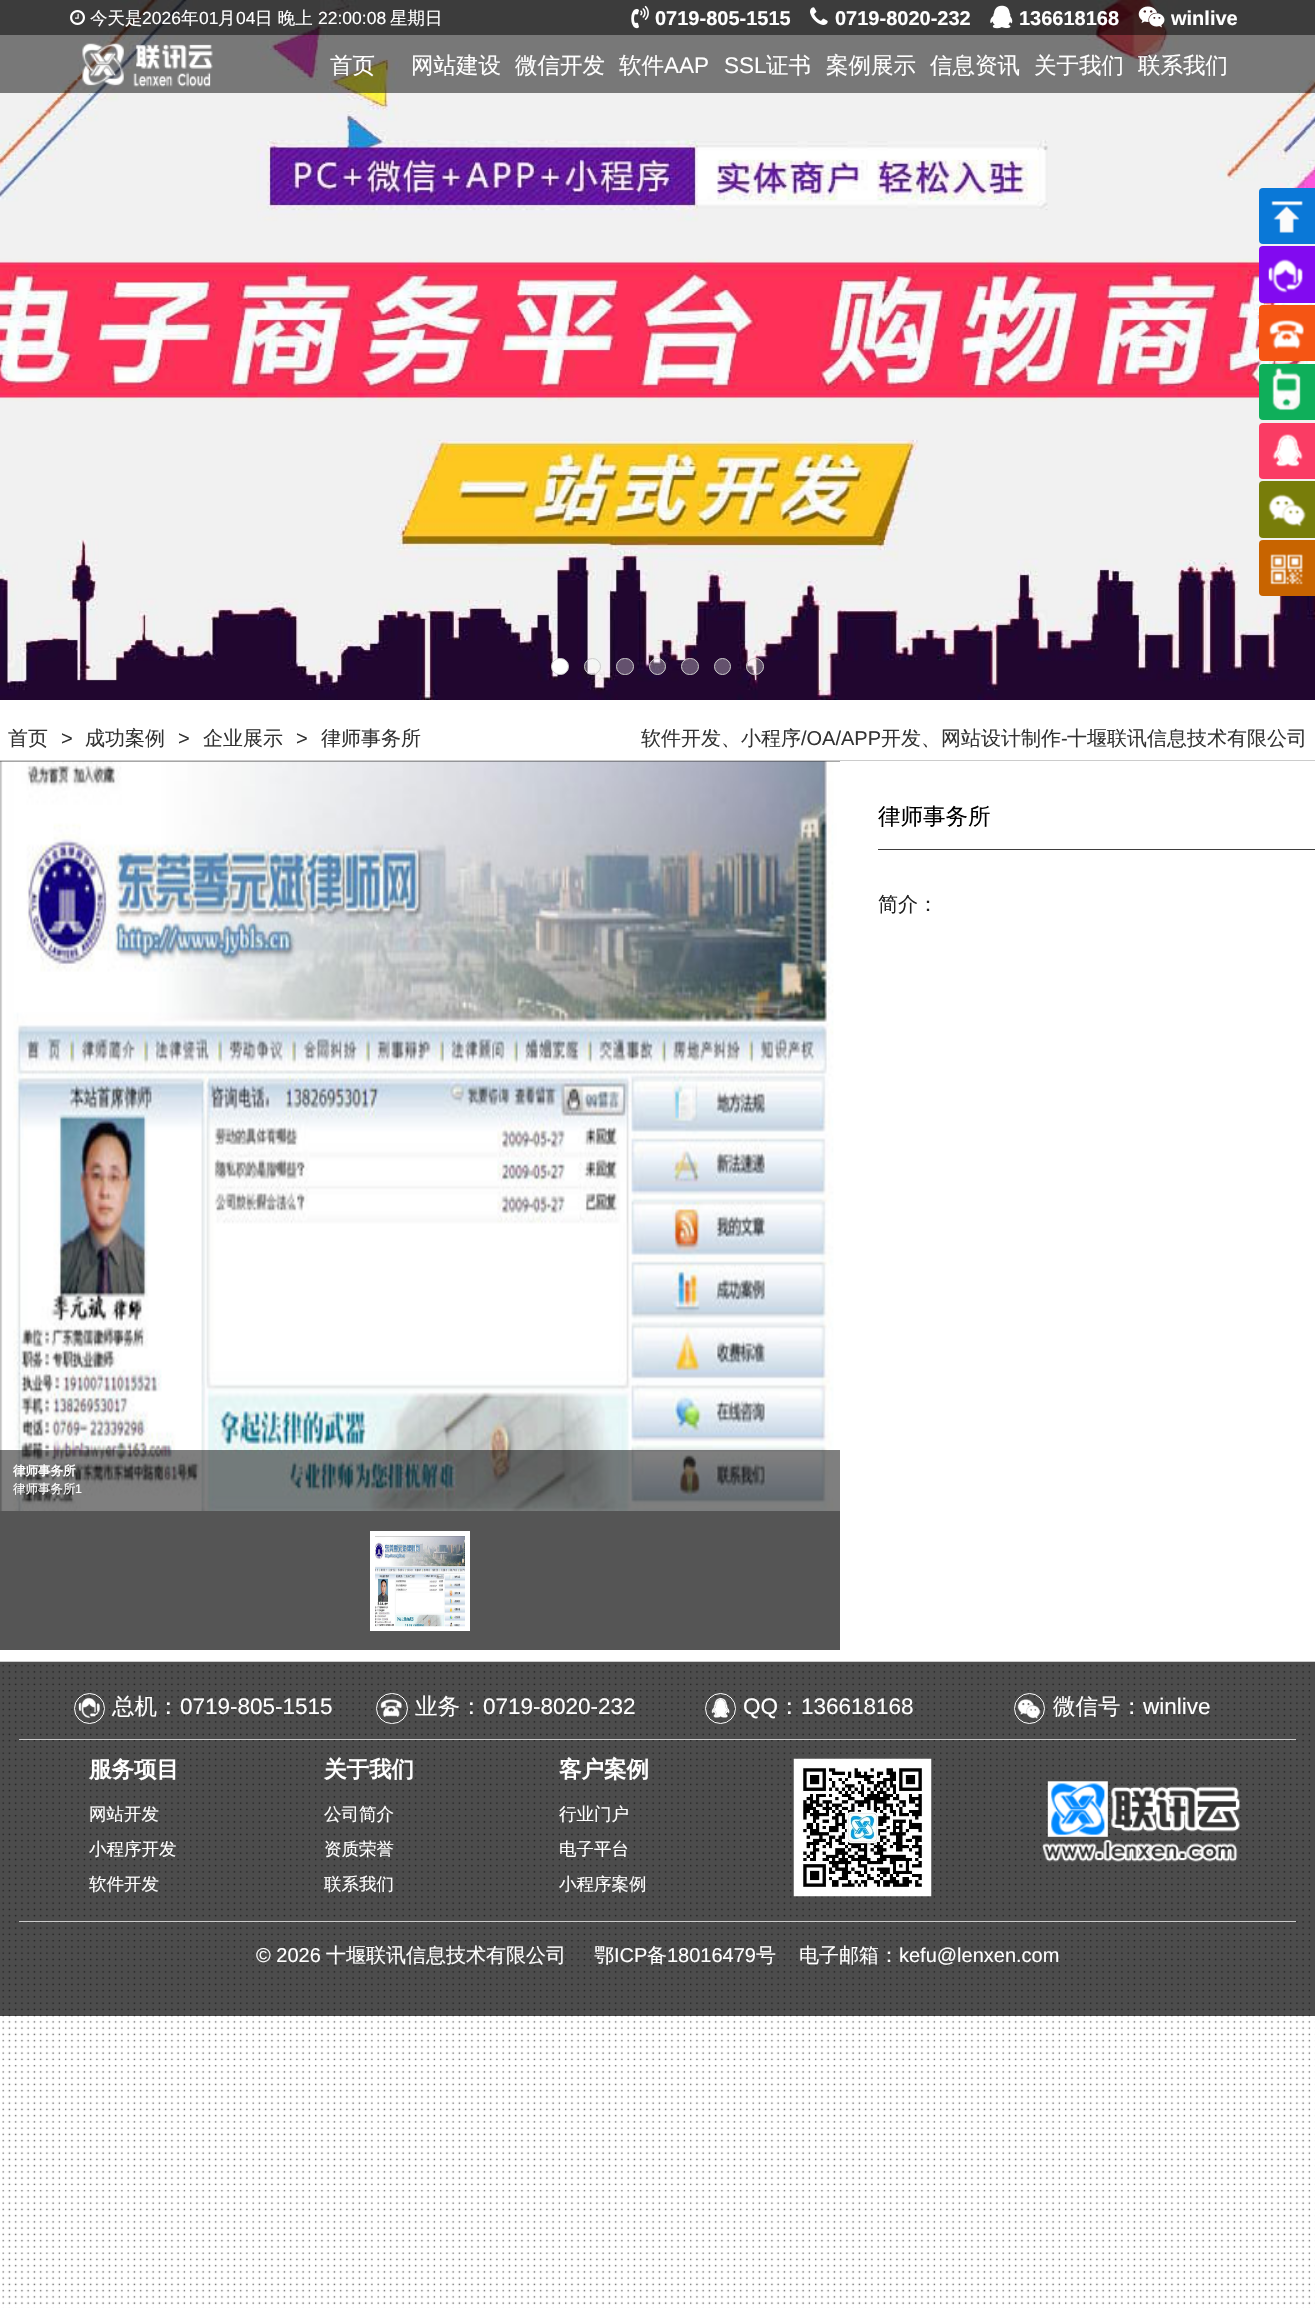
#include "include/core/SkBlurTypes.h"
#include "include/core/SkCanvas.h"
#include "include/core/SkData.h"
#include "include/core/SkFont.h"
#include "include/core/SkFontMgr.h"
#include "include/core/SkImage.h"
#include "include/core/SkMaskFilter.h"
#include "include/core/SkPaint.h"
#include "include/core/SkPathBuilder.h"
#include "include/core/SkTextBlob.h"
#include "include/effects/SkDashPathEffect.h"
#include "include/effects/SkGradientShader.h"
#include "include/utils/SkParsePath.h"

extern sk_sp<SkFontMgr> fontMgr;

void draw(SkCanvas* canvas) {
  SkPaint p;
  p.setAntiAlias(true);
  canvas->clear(SK_ColorWHITE);
  canvas->drawImageRect(SkImages::DeferredFromEncodedData(SkData::MakeFromFileName("images/1.png")), SkRect::MakeLTRB(2, 1664, 1315, 2308), SkSamplingOptions());
  canvas->drawImageRect(SkImages::DeferredFromEncodedData(SkData::MakeFromFileName("images/2.png")), SkRect::MakeLTRB(0, 0, 1315, 700), SkSamplingOptions());
  p.setColor(SK_ColorWHITE);
  canvas->drawRoundRect(SkRect::MakeLTRB(551.5f, 658.5f, 568.5f, 674.5f), 8, 8, p);
  p.setStyle(SkPaint::kStroke_Style);
  p.setStrokeWidth(1);
  p.setColor(SkColorSetRGB(204, 204, 204));
  canvas->drawRoundRect(SkRect::MakeLTRB(551.5f, 658.5f, 568.5f, 674.5f), 8, 8, p);
  p.setStyle(SkPaint::kFill_Style);
  p.setColor(SkColorSetARGB(77, 255, 255, 255));
  canvas->drawCircle(592.5f, 666.5f, 8, p);
  p.setStyle(SkPaint::kStroke_Style);
  p.setColor(SkColorSetRGB(204, 204, 204));
  canvas->drawCircle(592.5f, 666.5f, 8, p);
  p.setStyle(SkPaint::kFill_Style);
  p.setColor(SkColorSetARGB(77, 255, 255, 255));
  canvas->drawRoundRect(SkRect::MakeLTRB(616.5f, 658.5f, 633.5f, 674.5f), 8, 8, p);
  p.setStyle(SkPaint::kStroke_Style);
  p.setColor(SkColorSetRGB(204, 204, 204));
  canvas->drawRoundRect(SkRect::MakeLTRB(616.5f, 658.5f, 633.5f, 674.5f), 8, 8, p);
  p.setStyle(SkPaint::kFill_Style);
  p.setColor(SkColorSetARGB(77, 255, 255, 255));
  canvas->drawCircle(657.5f, 666.5f, 8, p);
  p.setStyle(SkPaint::kStroke_Style);
  p.setColor(SkColorSetRGB(204, 204, 204));
  canvas->drawCircle(657.5f, 666.5f, 8, p);
  p.setStyle(SkPaint::kFill_Style);
  p.setColor(SkColorSetARGB(77, 255, 255, 255));
  canvas->drawRoundRect(SkRect::MakeLTRB(681.5f, 658.5f, 698.5f, 674.5f), 8, 8, p);
  p.setStyle(SkPaint::kStroke_Style);
  p.setColor(SkColorSetRGB(204, 204, 204));
  canvas->drawRoundRect(SkRect::MakeLTRB(681.5f, 658.5f, 698.5f, 674.5f), 8, 8, p);
  p.setStyle(SkPaint::kFill_Style);
  p.setColor(SkColorSetRGB(100, 81, 109));
  canvas->drawCircle(722.5f, 666.5f, 8, p);
  p.setStyle(SkPaint::kStroke_Style);
  p.setColor(SkColorSetRGB(204, 204, 204));
  canvas->drawCircle(722.5f, 666.5f, 8, p);
  p.setStyle(SkPaint::kFill_Style);
  p.setColor(SkColorSetARGB(77, 255, 255, 255));
  canvas->drawRoundRect(SkRect::MakeLTRB(746.5f, 658.5f, 763.5f, 674.5f), 8, 8, p);
  p.setStyle(SkPaint::kStroke_Style);
  p.setColor(SkColorSetRGB(204, 204, 204));
  canvas->drawRoundRect(SkRect::MakeLTRB(746.5f, 658.5f, 763.5f, 674.5f), 8, 8, p);
  p.setStyle(SkPaint::kFill_Style);
  p.setColor(SkColorSetARGB(128, 0, 0, 0));
  canvas->drawRect(SkRect::MakeLTRB(0, 0, 1315, 93), p);
  canvas->drawRect(SkRect::MakeLTRB(0, 0, 1315, 35), p);
  canvas->drawImageRect(SkImages::DeferredFromEncodedData(SkData::MakeFromFileName("images/3.png")), SkRect::MakeLTRB(70, 10, 85, 25), SkSamplingOptions());
  canvas->drawImageRect(SkImages::DeferredFromEncodedData(SkData::MakeFromFileName("images/4.png")), SkRect::MakeLTRB(631, 5, 649, 29), SkSamplingOptions());
  canvas->drawImageRect(SkImages::DeferredFromEncodedData(SkData::MakeFromFileName("images/5.png")), SkRect::MakeLTRB(810, 7, 828, 25), SkSamplingOptions());
  canvas->drawImageRect(SkImages::DeferredFromEncodedData(SkData::MakeFromFileName("images/6.png")), SkRect::MakeLTRB(990, 5, 1013, 29), SkSamplingOptions());
  canvas->drawImageRect(SkImages::DeferredFromEncodedData(SkData::MakeFromFileName("images/7.png")), SkRect::MakeLTRB(1138, 6, 1165, 28), SkSamplingOptions());
  canvas->drawImageRect(SkImages::DeferredFromEncodedData(SkData::MakeFromFileName("images/8.png")), SkRect::MakeLTRB(82, 43, 213, 87), SkSamplingOptions());
  p.setColor(SkColorSetRGB(10, 120, 215));
  canvas->drawRoundRect(SkRect::MakeLTRB(1259, 188, 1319, 244), 4, 4, p);
  canvas->drawImageRect(SkImages::DeferredFromEncodedData(SkData::MakeFromFileName("images/9.png")), SkRect::MakeLTRB(1271, 201, 1303, 233), SkSamplingOptions());
  p.setColor(SkColorSetRGB(130, 10, 240));
  canvas->drawRoundRect(SkRect::MakeLTRB(1259, 246, 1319, 303), 4, 4, p);
  canvas->drawImageRect(SkImages::DeferredFromEncodedData(SkData::MakeFromFileName("images/10.png")), SkRect::MakeLTRB(1268, 259, 1303, 293), SkSamplingOptions());
  p.setColor(SkColorSetRGB(245, 85, 20));
  canvas->drawRoundRect(SkRect::MakeLTRB(1259, 305, 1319, 361), 4, 4, p);
  canvas->drawImageRect(SkImages::DeferredFromEncodedData(SkData::MakeFromFileName("images/11.png")), SkRect::MakeLTRB(1269, 320, 1304, 349), SkSamplingOptions());
  p.setColor(SkColorSetRGB(15, 175, 90));
  canvas->drawRoundRect(SkRect::MakeLTRB(1259, 364, 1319, 420), 4, 4, p);
  canvas->drawImageRect(SkImages::DeferredFromEncodedData(SkData::MakeFromFileName("images/12.png")), SkRect::MakeLTRB(1272, 368, 1301, 411), SkSamplingOptions());
  p.setColor(SkColorSetRGB(250, 60, 100));
  canvas->drawRoundRect(SkRect::MakeLTRB(1259, 423, 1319, 479), 4, 4, p);
  canvas->drawImageRect(SkImages::DeferredFromEncodedData(SkData::MakeFromFileName("images/13.png")), SkRect::MakeLTRB(1272, 434, 1303, 467), SkSamplingOptions());
  p.setColor(SkColorSetRGB(120, 125, 10));
  canvas->drawRoundRect(SkRect::MakeLTRB(1259, 481, 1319, 538), 4, 4, p);
  canvas->drawImageRect(SkImages::DeferredFromEncodedData(SkData::MakeFromFileName("images/14.png")), SkRect::MakeLTRB(1268, 494, 1306, 527), SkSamplingOptions());
  p.setColor(SkColorSetRGB(200, 100, 0));
  canvas->drawRoundRect(SkRect::MakeLTRB(1259, 540, 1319, 596), 4, 4, p);
  canvas->drawImageRect(SkImages::DeferredFromEncodedData(SkData::MakeFromFileName("images/15.png")), SkRect::MakeLTRB(1270, 554, 1303, 585), SkSamplingOptions());
  p.setColor(SkColorSetRGB(204, 204, 204));
  canvas->drawRect(SkRect::MakeLTRB(0, 760, 1315, 761), p);
  p.setColor(SkColorSetRGB(62, 61, 61));
  canvas->drawRect(SkRect::MakeLTRB(878, 849, 1315, 850), p);
  p.setColor(SkColorSetRGB(51, 51, 51));
  canvas->drawRect(SkRect::MakeLTRB(0, 761, 840, 762), p);
  canvas->drawImageRect(SkImages::DeferredFromEncodedData(SkData::MakeFromFileName("images/16.png")), SkRect::MakeLTRB(0, 761, 840, 1511), SkSamplingOptions());
  p.setColor(SkColorSetARGB(128, 0, 0, 0));
  canvas->drawRect(SkRect::MakeLTRB(0, 1450, 840, 1511), p);
  p.setColor(SkColorSetRGB(85, 85, 85));
  canvas->drawRect(SkRect::MakeLTRB(0, 1511, 840, 1650), p);
  p.setStyle(SkPaint::kStroke_Style);
  p.setStrokeWidth(5);
  p.setColor(SK_ColorWHITE);
  canvas->drawRect(SkRect::MakeLTRB(372.5f, 1533.5f, 467.5f, 1628.5f), p);
  canvas->drawImageRect(SkImages::DeferredFromEncodedData(SkData::MakeFromFileName("images/17.png")), SkRect::MakeLTRB(375, 1536, 465, 1627), SkSamplingOptions());
  p.setStyle(SkPaint::kFill_Style);
  p.setColor(SkColorSetARGB(179, 0, 0, 0));
  canvas->drawRect(SkRect::MakeLTRB(0, 1662, 1315, 2016), p);
  p.setColor(SkColorSetRGB(204, 204, 204));
  canvas->drawRect(SkRect::MakeLTRB(0, 1661, 1315, 1662), p);
  canvas->drawRect(SkRect::MakeLTRB(19, 1739, 1296, 1740), p);
  canvas->drawImageRect(SkImages::DeferredFromEncodedData(SkData::MakeFromFileName("images/18.png")), SkRect::MakeLTRB(78, 1697, 100, 1718), SkSamplingOptions());
  p.setStyle(SkPaint::kStroke_Style);
  p.setStrokeWidth(1);
  p.setColor(SK_ColorWHITE);
  canvas->drawCircle(89.5f, 1708.5f, 15, p);
  canvas->drawImageRect(SkImages::DeferredFromEncodedData(SkData::MakeFromFileName("images/19.png")), SkRect::MakeLTRB(380, 1699, 402, 1717), SkSamplingOptions());
  canvas->drawRoundRect(SkRect::MakeLTRB(376.5f, 1693.5f, 407.5f, 1723.5f), 15, 15, p);
  canvas->drawImageRect(SkImages::DeferredFromEncodedData(SkData::MakeFromFileName("images/20.png")), SkRect::MakeLTRB(711, 1698, 730, 1718), SkSamplingOptions());
  canvas->drawCircle(720.5f, 1708.5f, 15, p);
  canvas->drawImageRect(SkImages::DeferredFromEncodedData(SkData::MakeFromFileName("images/21.png")), SkRect::MakeLTRB(1017, 1699, 1041, 1719), SkSamplingOptions());
  canvas->drawCircle(1029.5f, 1708.5f, 15, p);
  canvas->drawImageRect(SkImages::DeferredFromEncodedData(SkData::MakeFromFileName("images/22.png")), SkRect::MakeLTRB(793, 1758, 932, 1897), SkSamplingOptions());
  canvas->drawImageRect(SkImages::DeferredFromEncodedData(SkData::MakeFromFileName("images/23.png")), SkRect::MakeLTRB(1042, 1781, 1240, 1862), SkSamplingOptions());
  p.setStyle(SkPaint::kFill_Style);
  p.setColor(SkColorSetRGB(204, 204, 204));
  canvas->drawRect(SkRect::MakeLTRB(19, 1921, 1296, 1922), p);
  SkFont font1(fontMgr->matchFamilyStyle("WenQuanYi Zen Hei", SkFontStyle(500, SkFontStyle::kNormal_Width, SkFontStyle::kUpright_Slant)), 17.5f);
  font1.setSubpixel(true);
  p.setColor(SK_ColorWHITE);
  canvas->drawString("今天是", 90, 24, font1, p);
  SkFont font2(fontMgr->matchFamilyStyle("Liberation Sans", SkFontStyle::Normal()), 17.5f);
  font2.setSubpixel(true);
  canvas->drawString("2026", 142, 24, font2, p);
  canvas->drawString("年", 181, 24, font1, p);
  canvas->drawString("01", 199, 24, font2, p);
  canvas->drawString("月", 218, 24, font1, p);
  canvas->drawString("04", 236, 24, font2, p);
  canvas->drawString("日 晚上", 255, 24, font1, p);
  canvas->drawString("22:00:08", 318, 24, font2, p);
  canvas->drawString("星期日", 390, 24, font1, p);
  SkFont font3(fontMgr->matchFamilyStyle("Liberation Sans", SkFontStyle::Bold()), 20);
  font3.setSubpixel(true);
  canvas->drawString("0719-805-1515", 655, 25, font3, p);
  canvas->drawString("0719-8020-232", 835, 25, font3, p);
  canvas->drawString("136618168", 1019, 25, font3, p);
  canvas->drawString("winlive", 1171, 25, font3, p);
  SkFont font4(fontMgr->matchFamilyStyle("WenQuanYi Zen Hei", SkFontStyle(500, SkFontStyle::kNormal_Width, SkFontStyle::kUpright_Slant)), 22.5f);
  font4.setSubpixel(true);
  canvas->drawString("首页", 330, 73, font4, p);
  canvas->drawString("网站建设", 411, 73, font4, p);
  canvas->drawString("微信开发", 515, 73, font4, p);
  canvas->drawString("软件", 619, 73, font4, p);
  SkFont font5(fontMgr->matchFamilyStyle("Liberation Sans", SkFontStyle::Normal()), 22.5f);
  font5.setSubpixel(true);
  canvas->drawString("AAP", 664, 73, font5, p);
  canvas->drawString("SSL", 724, 73, font5, p);
  canvas->drawString("证书", 766, 73, font4, p);
  canvas->drawString("案例展示", 826, 73, font4, p);
  canvas->drawString("信息资讯", 930, 73, font4, p);
  canvas->drawString("关于我们", 1034, 73, font4, p);
  canvas->drawString("联系我们", 1138, 73, font4, p);
  SkFont font6(fontMgr->matchFamilyStyle("WenQuanYi Zen Hei", SkFontStyle(500, SkFontStyle::kNormal_Width, SkFontStyle::kUpright_Slant)), 20);
  font6.setSubpixel(true);
  p.setColor(SkColorSetRGB(51, 51, 51));
  canvas->drawString("首页", 8, 745, font6, p);
  SkFont font7(fontMgr->matchFamilyStyle("Liberation Sans", SkFontStyle::Normal()), 20);
  font7.setSubpixel(true);
  canvas->drawString(">", 61, 745, font7, p);
  canvas->drawString("成功案例", 85, 745, font6, p);
  canvas->drawString(">", 178, 745, font7, p);
  canvas->drawString("企业展示", 203, 745, font6, p);
  canvas->drawString(">", 296, 745, font7, p);
  canvas->drawString("律师事务所", 321, 745, font6, p);
  canvas->drawString("软件开发、小程序", 641, 745, font6, p);
  canvas->drawString("/OA/APP", 801, 745, font7, p);
  canvas->drawString("开发、网站设计制作", 881, 745, font6, p);
  canvas->drawString("-", 1061, 745, font7, p);
  canvas->drawString("十堰联讯信息技术有限公司", 1067, 745, font6, p);
  p.setColor(SK_ColorBLACK);
  canvas->drawString("律师事务所", 878, 824, font4, p);
  p.setColor(SkColorSetRGB(34, 34, 34));
  canvas->drawString("简介：", 878, 911, font6, p);
  SkFont font8(fontMgr->matchFamilyStyle("WenQuanYi Zen Hei", SkFontStyle::Bold()), 12.5f);
  font8.setSubpixel(true);
  p.setColor(SK_ColorWHITE);
  canvas->drawString("律师事务所", 13, 1475, font8, p);
  SkFont font9(fontMgr->matchFamilyStyle("WenQuanYi Zen Hei", SkFontStyle(500, SkFontStyle::kNormal_Width, SkFontStyle::kUpright_Slant)), 12.5f);
  font9.setSubpixel(true);
  canvas->drawString("律师事务所", 13, 1493, font9, p);
  SkFont font10(fontMgr->matchFamilyStyle("Liberation Sans", SkFontStyle::Normal()), 12.5f);
  font10.setSubpixel(true);
  canvas->drawString("1", 75, 1493, font10, p);
  canvas->drawString("总机：", 112, 1714, font4, p);
  canvas->drawString("0719-805-1515", 180, 1714, font5, p);
  canvas->drawString("业务：", 415, 1714, font4, p);
  canvas->drawString("0719-8020-232", 483, 1714, font5, p);
  canvas->drawString("QQ", 743, 1714, font5, p);
  canvas->drawString("：", 778, 1714, font4, p);
  canvas->drawString("136618168", 801, 1714, font5, p);
  canvas->drawString("微信号：", 1053, 1714, font4, p);
  canvas->drawString("winlive", 1143, 1714, font5, p);
  SkFont font11(fontMgr->matchFamilyStyle("WenQuanYi Zen Hei", SkFontStyle::Bold()), 22.5f);
  font11.setSubpixel(true);
  canvas->drawString("服务项目", 89, 1777, font11, p);
  canvas->drawString("网站开发", 89, 1820, font1, p);
  canvas->drawString("小程序开发", 89, 1855, font1, p);
  canvas->drawString("软件开发", 89, 1890, font1, p);
  canvas->drawString("关于我们", 324, 1777, font11, p);
  canvas->drawString("公司简介", 324, 1820, font1, p);
  canvas->drawString("资质荣誉", 324, 1855, font1, p);
  canvas->drawString("联系我们", 324, 1890, font1, p);
  canvas->drawString("客户案例", 559, 1777, font11, p);
  canvas->drawString("行业门户", 559, 1820, font1, p);
  canvas->drawString("电子平台", 559, 1855, font1, p);
  canvas->drawString("小程序案例", 559, 1890, font1, p);
  canvas->drawString("© 2026", 256, 1962, font7, p);
  canvas->drawString("十堰联讯信息技术有限公司", 326, 1962, font6, p);
  canvas->drawString("鄂", 594, 1962, font6, p);
  canvas->drawString("ICP", 614, 1962, font7, p);
  canvas->drawString("备", 647, 1962, font6, p);
  canvas->drawString("18016479", 667, 1962, font7, p);
  canvas->drawString("号", 756, 1962, font6, p);
  canvas->drawString("电子邮箱：", 799, 1962, font6, p);
  canvas->drawString("kefu@lenxen.com", 899, 1962, font7, p);
}
